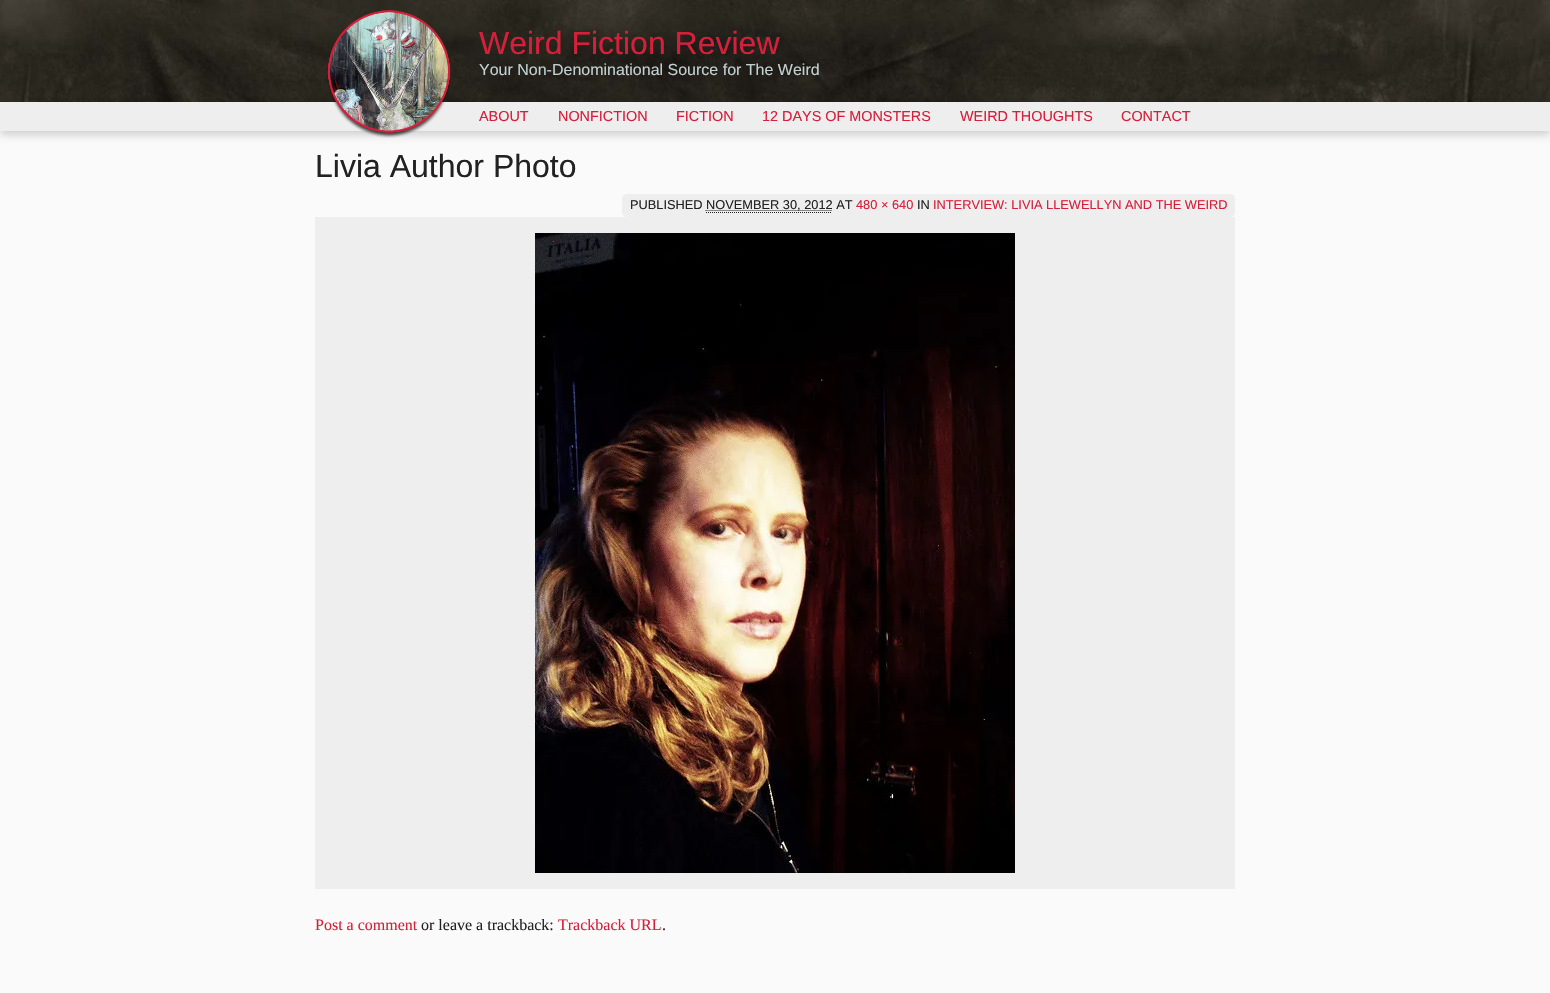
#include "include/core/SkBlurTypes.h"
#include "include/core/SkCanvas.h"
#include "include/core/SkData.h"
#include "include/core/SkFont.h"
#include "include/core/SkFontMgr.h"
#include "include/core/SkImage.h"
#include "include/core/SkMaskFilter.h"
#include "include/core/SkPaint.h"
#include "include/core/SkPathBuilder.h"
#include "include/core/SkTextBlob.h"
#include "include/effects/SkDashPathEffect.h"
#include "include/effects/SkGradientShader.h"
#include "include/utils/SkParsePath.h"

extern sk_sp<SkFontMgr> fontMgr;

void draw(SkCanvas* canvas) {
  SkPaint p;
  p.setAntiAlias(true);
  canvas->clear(SkColorSetRGB(250, 250, 250));
  canvas->drawImageRect(SkImages::DeferredFromEncodedData(SkData::MakeFromFileName("images/1.png")), SkRect::MakeLTRB(0, 0, 1550, 102), SkSamplingOptions());
  p.setColor(SkColorSetARGB(51, 0, 0, 0));
  p.setMaskFilter(SkMaskFilter::MakeBlur(kNormal_SkBlurStyle, 5));
  canvas->drawRect(SkRect::MakeLTRB(0, 105, 1550, 134), p);
  p.setMaskFilter(nullptr);
  p.setColor(SkColorSetRGB(238, 238, 238));
  canvas->drawRect(SkRect::MakeLTRB(0, 102, 1550, 131), p);
  canvas->drawImageRect(SkImages::DeferredFromEncodedData(SkData::MakeFromFileName("images/2.png")), SkRect::MakeLTRB(327, 10, 451, 138), SkSamplingOptions());
  canvas->drawRoundRect(SkRect::MakeLTRB(622, 194, 1235, 217), 5, 5, p);
  p.setStyle(SkPaint::kStroke_Style);
  p.setStrokeWidth(1);
  p.setColor(SkColorSetRGB(34, 34, 34));
  p.setPathEffect(SkDashPathEffect::Make({{1, 1}}, 0));
  canvas->drawPath(SkPathBuilder().moveTo(706, 212.5f).lineTo(832, 212.5f).detach(), p);
  p.setPathEffect(nullptr);
  p.setPathEffect(SkDashPathEffect::Make({{1, 1}}, 0));
  canvas->drawPath(SkPathBuilder().moveTo(705.5f, 210.5f).lineTo(832, 210.5f).detach(), p);
  p.setPathEffect(nullptr);
  p.setStyle(SkPaint::kFill_Style);
  p.setColor(SkColorSetRGB(238, 238, 238));
  canvas->drawRect(SkRect::MakeLTRB(315, 217, 1235, 889), p);
  canvas->drawImageRect(SkImages::DeferredFromEncodedData(SkData::MakeFromFileName("images/3.png")), SkRect::MakeLTRB(535, 233, 1015, 873), SkSamplingOptions());
  SkFont font1(fontMgr->matchFamilyStyle("Liberation Sans", SkFontStyle::Normal()), 32);
  font1.setSubpixel(true);
  p.setColor(SkColorSetRGB(214, 31, 59));
  canvas->drawString("Weird Fiction Review", 479, 54, font1, p);
  SkFont font2(fontMgr->matchFamilyStyle("Liberation Sans", SkFontStyle::Normal()), 16);
  font2.setSubpixel(true);
  p.setColor(SkColorSetRGB(193, 209, 208));
  canvas->drawString("Your Non-Denominational Source for The Weird", 479, 75, font2, p);
  SkFont font3(fontMgr->matchFamilyStyle("Liberation Sans", SkFontStyle::Normal()), 14.4f);
  font3.setSubpixel(true);
  p.setColor(SkColorSetRGB(214, 31, 59));
  canvas->drawString("ABOUT", 479, 121, font3, p);
  canvas->drawString("NONFICTION", 558, 121, font3, p);
  canvas->drawString("FICTION", 676, 121, font3, p);
  canvas->drawString("12 DAYS OF MONSTERS", 762, 121, font3, p);
  canvas->drawString("WEIRD THOUGHTS", 960, 121, font3, p);
  canvas->drawString("CONTACT", 1121, 121, font3, p);
  p.setColor(SkColorSetRGB(34, 34, 34));
  canvas->drawString("Livia Author Photo", 315, 177, font1, p);
  SkFont font4(fontMgr->matchFamilyStyle("Liberation Sans", SkFontStyle::Normal()), 12.8f);
  font4.setSubpixel(true);
  canvas->drawString("PUBLISHED", 630, 209, font4, p);
  canvas->drawString("NOVEMBER 30, 2012 AT", 706, 209, font4, p);
  p.setColor(SkColorSetRGB(214, 31, 59));
  canvas->drawString("480 × 640", 856, 209, font4, p);
  p.setColor(SkColorSetRGB(34, 34, 34));
  canvas->drawString("IN", 917, 209, font4, p);
  p.setColor(SkColorSetRGB(214, 31, 59));
  canvas->drawString("INTERVIEW: LIVIA LLEWELLYN AND THE WEIRD", 933, 209, font4, p);
  SkFont font5(fontMgr->matchFamilyStyle("Liberation Serif", SkFontStyle::Normal()), 16);
  font5.setSubpixel(true);
  canvas->drawString("Post a comment", 315, 930, font5, p);
  p.setColor(SkColorSetRGB(34, 34, 34));
  canvas->drawString("or leave a trackback:", 421, 930, font5, p);
  p.setColor(SkColorSetRGB(214, 31, 59));
  canvas->drawString("Trackback URL", 558, 930, font5, p);
  p.setColor(SkColorSetRGB(34, 34, 34));
  canvas->drawString(".", 662, 930, font5, p);
}
